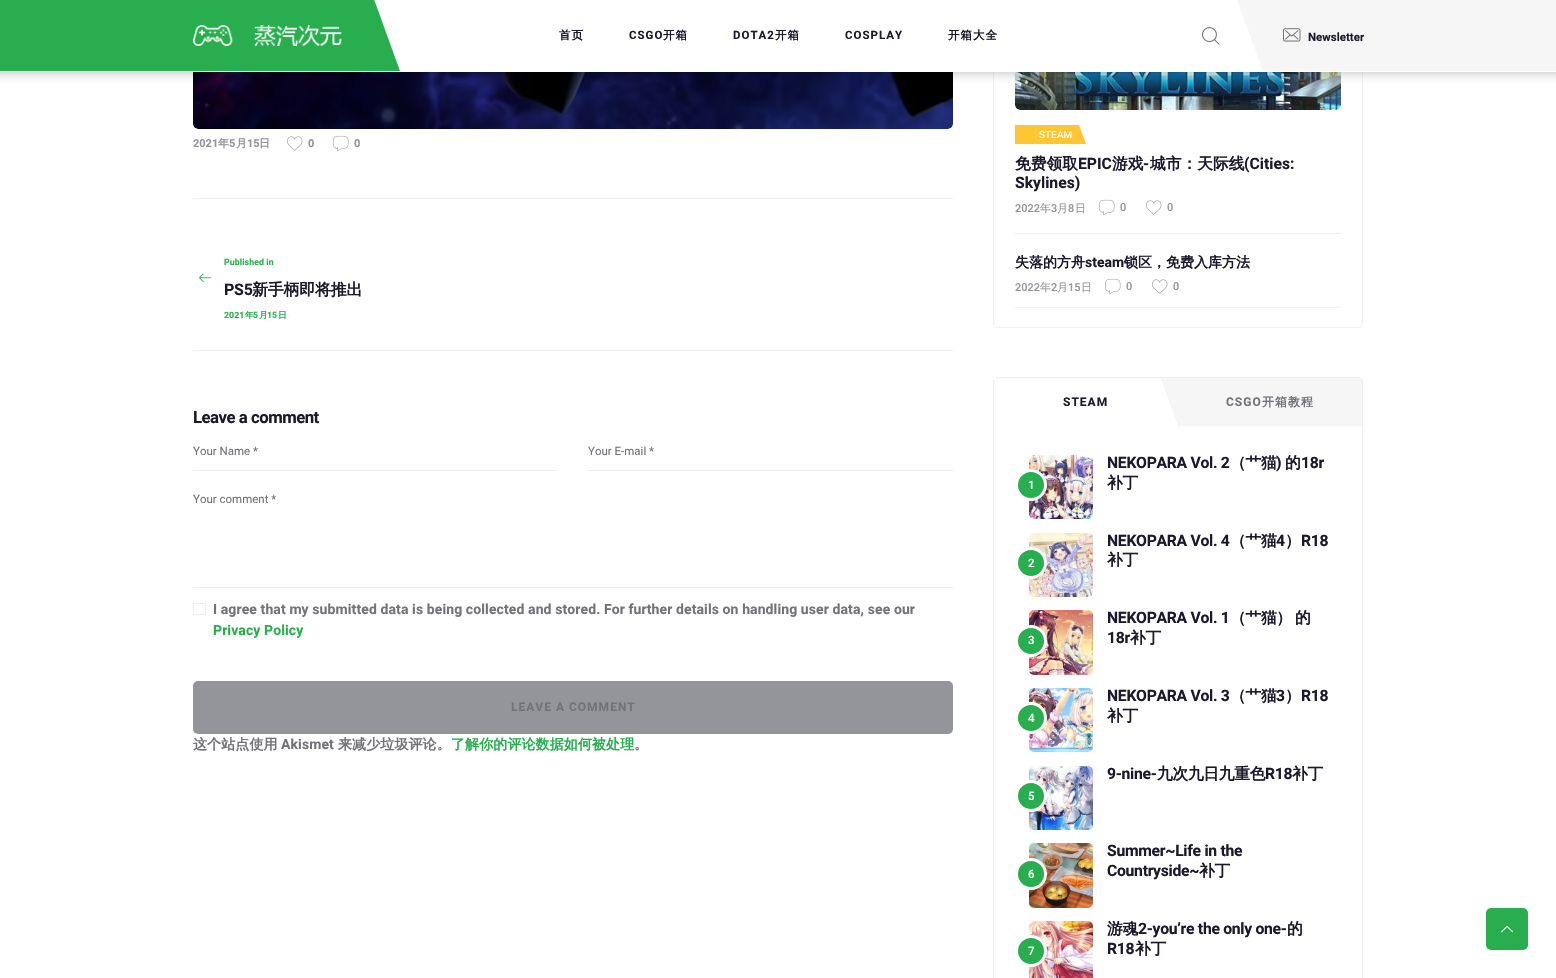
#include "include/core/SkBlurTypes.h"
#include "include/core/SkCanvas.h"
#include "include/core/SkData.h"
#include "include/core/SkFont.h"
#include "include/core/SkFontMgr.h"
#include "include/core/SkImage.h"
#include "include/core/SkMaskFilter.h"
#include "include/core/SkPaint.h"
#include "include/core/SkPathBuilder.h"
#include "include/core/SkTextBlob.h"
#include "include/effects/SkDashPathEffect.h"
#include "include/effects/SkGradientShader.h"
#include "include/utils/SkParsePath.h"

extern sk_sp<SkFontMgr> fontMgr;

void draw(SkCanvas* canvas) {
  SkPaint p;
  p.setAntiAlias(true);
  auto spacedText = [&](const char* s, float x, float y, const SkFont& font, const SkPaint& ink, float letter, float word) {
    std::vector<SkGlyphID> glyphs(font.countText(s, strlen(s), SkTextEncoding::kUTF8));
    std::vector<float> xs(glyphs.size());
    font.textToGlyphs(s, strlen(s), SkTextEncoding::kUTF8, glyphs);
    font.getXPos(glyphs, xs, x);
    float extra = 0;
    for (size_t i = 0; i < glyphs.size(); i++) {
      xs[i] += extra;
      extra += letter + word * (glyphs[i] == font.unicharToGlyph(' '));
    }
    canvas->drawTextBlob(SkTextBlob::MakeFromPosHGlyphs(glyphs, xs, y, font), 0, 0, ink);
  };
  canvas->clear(SK_ColorWHITE);
  canvas->drawImageRect(SkImages::DeferredFromEncodedData(SkData::MakeFromFileName("images/4.png")), SkRect::MakeLTRB(193, 72, 953, 129), SkSamplingOptions());
  p.setStyle(SkPaint::kStroke_Style);
  p.setStrokeWidth(1);
  p.setColor(SkColorSetRGB(239, 239, 240));
  canvas->drawRoundRect(SkRect::MakeLTRB(993.5f, -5.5f, 1362.5f, 327.5f), 4.5f, 4.5f, p);
  canvas->drawImageRect(SkImages::DeferredFromEncodedData(SkData::MakeFromFileName("images/8.png")), SkRect::MakeLTRB(1015, 72, 1341, 110), SkSamplingOptions());
  p.setStyle(SkPaint::kFill_Style);
  p.setColor(SkColorSetARGB(51, 0, 0, 0));
  p.setMaskFilter(SkMaskFilter::MakeBlur(kNormal_SkBlurStyle, 5));
  canvas->drawRect(SkRect::MakeLTRB(-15, 2, 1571, 74), p);
  p.setMaskFilter(nullptr);
  p.setColor(SK_ColorWHITE);
  canvas->drawRect(SkRect::MakeLTRB(0, 0, 1556, 72), p);
  p.setColor(SkColorSetRGB(40, 174, 78));
  canvas->drawPath(SkPathBuilder().moveTo(-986, -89).lineTo(342, -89).lineTo(400, 71).lineTo(-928, 71).close().detach(), p);
  canvas->drawImageRect(SkImages::DeferredFromEncodedData(SkData::MakeFromFileName("images/1.png")), SkRect::MakeLTRB(193, 25, 342, 46), SkSamplingOptions());
  canvas->drawImageRect(SkImages::DeferredFromEncodedData(SkData::MakeFromFileName("images/2.png")), SkRect::MakeLTRB(1202, 27, 1220, 45), SkSamplingOptions());
  p.setColor(SkColorSetRGB(246, 246, 246));
  canvas->drawPath(SkPathBuilder().moveTo(1193, -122).lineTo(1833, -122).lineTo(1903, 71).lineTo(1263, 71).close().detach(), p);
  canvas->drawImageRect(SkImages::DeferredFromEncodedData(SkData::MakeFromFileName("images/3.png")), SkRect::MakeLTRB(1283, 28, 1301, 42), SkSamplingOptions());
  canvas->drawImageRect(SkImages::DeferredFromEncodedData(SkData::MakeFromFileName("images/5.png")), SkRect::MakeLTRB(287, 136, 303, 151), SkSamplingOptions());
  canvas->drawImageRect(SkImages::DeferredFromEncodedData(SkData::MakeFromFileName("images/6.png")), SkRect::MakeLTRB(333, 135, 349, 152), SkSamplingOptions());
  p.setColor(SkColorSetRGB(239, 239, 240));
  canvas->drawRect(SkRect::MakeLTRB(193, 198, 953, 199), p);
  canvas->drawImageRect(SkImages::DeferredFromEncodedData(SkData::MakeFromFileName("images/7.png")), SkRect::MakeLTRB(199, 273, 212, 282), SkSamplingOptions());
  canvas->drawRect(SkRect::MakeLTRB(193, 350, 953, 351), p);
  p.setColor(SkColorSetRGB(237, 237, 237));
  canvas->drawRect(SkRect::MakeLTRB(193, 470, 558, 471), p);
  canvas->drawRect(SkRect::MakeLTRB(588, 470, 953, 471), p);
  canvas->drawRect(SkRect::MakeLTRB(193, 587, 953, 588), p);
  p.setStyle(SkPaint::kStroke_Style);
  p.setColor(SkColorSetRGB(239, 239, 240));
  canvas->drawRect(SkRect::MakeLTRB(193.5f, 603.5f, 205.5f, 614.5f), p);
  p.setStyle(SkPaint::kFill_Style);
  p.setColor(SkColorSetRGB(148, 148, 155));
  canvas->drawRoundRect(SkRect::MakeLTRB(193, 681, 953, 734), 5, 5, p);
  canvas->save();
  canvas->clipRect(SkRect::MakeLTRB(1015, 0, 1341, 218));
  p.setColor(SkColorSetRGB(254, 198, 50));
  canvas->drawPath(SkPathBuilder().moveTo(1005, 125).lineTo(1079, 125).lineTo(1086, 144).lineTo(1011, 144).close().detach(), p);
  canvas->restore();
  canvas->drawImageRect(SkImages::DeferredFromEncodedData(SkData::MakeFromFileName("images/6.png")), SkRect::MakeLTRB(1099, 199, 1115, 216), SkSamplingOptions());
  canvas->drawImageRect(SkImages::DeferredFromEncodedData(SkData::MakeFromFileName("images/5.png")), SkRect::MakeLTRB(1146, 200, 1162, 215), SkSamplingOptions());
  p.setColor(SkColorSetRGB(238, 238, 238));
  canvas->drawRect(SkRect::MakeLTRB(1015, 233, 1341, 234), p);
  canvas->drawImageRect(SkImages::DeferredFromEncodedData(SkData::MakeFromFileName("images/6.png")), SkRect::MakeLTRB(1105, 278, 1121, 295), SkSamplingOptions());
  canvas->drawImageRect(SkImages::DeferredFromEncodedData(SkData::MakeFromFileName("images/5.png")), SkRect::MakeLTRB(1152, 279, 1168, 294), SkSamplingOptions());
  p.setColor(SkColorSetRGB(239, 239, 240));
  canvas->drawRect(SkRect::MakeLTRB(1015, 307, 1341, 308), p);
  p.setStyle(SkPaint::kStroke_Style);
  canvas->drawRoundRect(SkRect::MakeLTRB(993.5f, 377.5f, 1362.5f, 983.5f), 4.5f, 4.5f, p);
  p.setStyle(SkPaint::kFill_Style);
  p.setColor(SK_ColorWHITE);
  canvas->drawRect(SkRect::MakeLTRB(994, 378, 997, 381), p);
  canvas->drawRect(SkRect::MakeLTRB(1359, 378, 1362, 381), p);
  canvas->save();
  canvas->clipRect(SkRect::MakeLTRB(994, 378, 1362, 426));
  p.setColor(SkColorSetRGB(246, 246, 246));
  canvas->drawPath(SkPathBuilder().moveTo(1162, 378).lineTo(1361, 378).lineTo(1378, 426).lineTo(1180, 426).close().detach(), p);
  p.setColor(SkColorSetRGB(239, 239, 240));
  canvas->drawPath(SkPathBuilder().moveTo(1361, 378).lineTo(1362, 378).lineTo(1380, 427).lineTo(1379, 427).close().detach(), p);
  canvas->restore();
  canvas->drawPath(SkPathBuilder().moveTo(1161, 378).lineTo(1162, 378).lineTo(1180, 427).lineTo(1179, 427).close().detach(), p);
  canvas->drawImageRect(SkImages::DeferredFromEncodedData(SkData::MakeFromFileName("images/9.png")), SkRect::MakeLTRB(1029, 455, 1093, 519), SkSamplingOptions());
  p.setColor(SkColorSetRGB(40, 174, 78));
  canvas->drawCircle(1031, 485, 14.5f, p);
  p.setStyle(SkPaint::kStroke_Style);
  p.setStrokeWidth(3);
  p.setColor(SK_ColorWHITE);
  canvas->drawCircle(1031, 485, 14.5f, p);
  canvas->drawImageRect(SkImages::DeferredFromEncodedData(SkData::MakeFromFileName("images/10.png")), SkRect::MakeLTRB(1029, 533, 1093, 597), SkSamplingOptions());
  p.setStyle(SkPaint::kFill_Style);
  p.setColor(SkColorSetRGB(40, 174, 78));
  canvas->drawCircle(1031, 563, 14.5f, p);
  p.setStyle(SkPaint::kStroke_Style);
  p.setColor(SK_ColorWHITE);
  canvas->drawCircle(1031, 563, 14.5f, p);
  canvas->drawImageRect(SkImages::DeferredFromEncodedData(SkData::MakeFromFileName("images/11.png")), SkRect::MakeLTRB(1029, 610, 1093, 675), SkSamplingOptions());
  p.setStyle(SkPaint::kFill_Style);
  p.setColor(SkColorSetRGB(40, 174, 78));
  canvas->drawCircle(1031, 641, 14.5f, p);
  p.setStyle(SkPaint::kStroke_Style);
  p.setColor(SK_ColorWHITE);
  canvas->drawCircle(1031, 641, 14.5f, p);
  canvas->drawImageRect(SkImages::DeferredFromEncodedData(SkData::MakeFromFileName("images/12.png")), SkRect::MakeLTRB(1029, 688, 1093, 752), SkSamplingOptions());
  p.setStyle(SkPaint::kFill_Style);
  p.setColor(SkColorSetRGB(40, 174, 78));
  canvas->drawCircle(1031, 718, 14.5f, p);
  p.setStyle(SkPaint::kStroke_Style);
  p.setColor(SK_ColorWHITE);
  canvas->drawCircle(1031, 718, 14.5f, p);
  canvas->drawImageRect(SkImages::DeferredFromEncodedData(SkData::MakeFromFileName("images/13.png")), SkRect::MakeLTRB(1029, 766, 1093, 830), SkSamplingOptions());
  p.setStyle(SkPaint::kFill_Style);
  p.setColor(SkColorSetRGB(40, 174, 78));
  canvas->drawCircle(1031, 796, 14.5f, p);
  p.setStyle(SkPaint::kStroke_Style);
  p.setColor(SK_ColorWHITE);
  canvas->drawCircle(1031, 796, 14.5f, p);
  canvas->drawImageRect(SkImages::DeferredFromEncodedData(SkData::MakeFromFileName("images/14.png")), SkRect::MakeLTRB(1029, 843, 1093, 908), SkSamplingOptions());
  p.setStyle(SkPaint::kFill_Style);
  p.setColor(SkColorSetRGB(40, 174, 78));
  canvas->drawCircle(1031, 874, 14.5f, p);
  p.setStyle(SkPaint::kStroke_Style);
  p.setColor(SK_ColorWHITE);
  canvas->drawCircle(1031, 874, 14.5f, p);
  canvas->drawImageRect(SkImages::DeferredFromEncodedData(SkData::MakeFromFileName("images/15.png")), SkRect::MakeLTRB(1029, 921, 1093, 978), SkSamplingOptions());
  p.setStyle(SkPaint::kFill_Style);
  p.setColor(SkColorSetRGB(40, 174, 78));
  canvas->drawCircle(1031, 951, 14.5f, p);
  p.setStyle(SkPaint::kStroke_Style);
  p.setColor(SK_ColorWHITE);
  canvas->drawCircle(1031, 951, 14.5f, p);
  p.setStyle(SkPaint::kFill_Style);
  p.setColor(SkColorSetRGB(40, 174, 78));
  canvas->drawRoundRect(SkRect::MakeLTRB(1486, 908, 1528, 950), 5, 5, p);
  canvas->drawImageRect(SkImages::DeferredFromEncodedData(SkData::MakeFromFileName("images/16.png")), SkRect::MakeLTRB(1501, 925, 1513, 933), SkSamplingOptions());
  SkFont font1(fontMgr->matchFamilyStyle("WenQuanYi Zen Hei", SkFontStyle::Bold()), 11.5f);
  font1.setSubpixel(true);
  p.setColor(SkColorSetRGB(28, 25, 44));
  spacedText("首页", 559, 39, font1, p, 1, 0);
  SkFont font2(fontMgr->matchFamilyStyle("Roboto", SkFontStyle::Bold()), 11.5f);
  font2.setSubpixel(true);
  spacedText("CSGO", 629, 39, font2, p, 1, 0);
  spacedText("开箱", 663, 39, font1, p, 1, 0);
  spacedText("DOTA2", 733, 39, font2, p, 1, 0);
  spacedText("开箱", 775, 39, font1, p, 1, 0);
  spacedText("COSPLAY", 845, 39, font2, p, 1, 0);
  spacedText("开箱大全", 948, 39, font1, p, 1, 0);
  canvas->drawString("Newsletter", 1308, 41, font2, p);
  SkFont font3(fontMgr->matchFamilyStyle("Roboto", SkFontStyle::Bold()), 11);
  font3.setSubpixel(true);
  p.setColor(SkColorSetRGB(148, 148, 155));
  canvas->drawString("2021", 193, 147, font3, p);
  SkFont font4(fontMgr->matchFamilyStyle("WenQuanYi Zen Hei", SkFontStyle::Bold()), 11);
  font4.setSubpixel(true);
  canvas->drawString("年", 218, 147, font4, p);
  canvas->drawString("5", 229, 147, font3, p);
  canvas->drawString("月", 236, 147, font4, p);
  canvas->drawString("15", 247, 147, font3, p);
  canvas->drawString("日", 259, 147, font4, p);
  canvas->drawString("0", 308, 147, font3, p);
  canvas->drawString("0", 354, 147, font3, p);
  SkFont font5(fontMgr->matchFamilyStyle("Roboto", SkFontStyle::Bold()), 8.75f);
  font5.setSubpixel(true);
  p.setColor(SkColorSetRGB(40, 174, 78));
  spacedText("Published in", 224, 265, font5, p, 0.1f, 0);
  SkFont font6(fontMgr->matchFamilyStyle("Roboto", SkFontStyle::Bold()), 16);
  font6.setSubpixel(true);
  p.setColor(SkColorSetRGB(28, 25, 44));
  spacedText("PS5", 224, 295, font6, p, -0.25f, 0);
  SkFont font7(fontMgr->matchFamilyStyle("WenQuanYi Zen Hei", SkFontStyle::Bold()), 16);
  font7.setSubpixel(true);
  spacedText("新手柄即将推出", 252, 295, font7, p, -0.25f, 0);
  p.setColor(SkColorSetRGB(40, 174, 78));
  spacedText("2021", 224, 318, font5, p, 0.1f, 0);
  SkFont font8(fontMgr->matchFamilyStyle("WenQuanYi Zen Hei", SkFontStyle::Bold()), 8.75f);
  font8.setSubpixel(true);
  spacedText("年", 245, 318, font8, p, 0.1f, 0);
  spacedText("5", 253, 318, font5, p, 0.1f, 0);
  spacedText("月", 259, 318, font8, p, 0.1f, 0);
  spacedText("15", 267, 318, font5, p, 0.1f, 0);
  spacedText("日", 278, 318, font8, p, 0.1f, 0);
  SkFont font9(fontMgr->matchFamilyStyle("Roboto", SkFontStyle::Bold()), 16.75f);
  font9.setSubpixel(true);
  p.setColor(SkColorSetRGB(28, 25, 44));
  spacedText("Leave a comment", 193, 423, font9, p, -0.5f, 0);
  SkFont font10(fontMgr->matchFamilyStyle("Roboto", SkFontStyle::Normal()), 11.5f);
  font10.setSubpixel(true);
  p.setColor(SkColorSetRGB(114, 114, 121));
  canvas->drawString("Your Name *", 193, 455, font10, p);
  canvas->drawString("Your E-mail *", 588, 455, font10, p);
  canvas->drawString("Your comment *", 193, 503, font10, p);
  SkFont font11(fontMgr->matchFamilyStyle("Roboto", SkFontStyle::Bold()), 14);
  font11.setSubpixel(true);
  spacedText("I agree that my submitted data is being collected and stored. For further details on handling user data, see our", 213, 614, font11, p, 0.1f, 0);
  p.setColor(SkColorSetRGB(40, 174, 78));
  spacedText("Privacy Policy", 213, 635, font11, p, 0.1f, 0);
  SkFont font12(fontMgr->matchFamilyStyle("Roboto", SkFontStyle::Bold()), 12);
  font12.setSubpixel(true);
  p.setColor(SkColorSetRGB(114, 114, 121));
  spacedText("LEAVE A COMMENT", 511, 711, font12, p, 1, 0);
  SkFont font13(fontMgr->matchFamilyStyle("WenQuanYi Zen Hei", SkFontStyle::Bold()), 14);
  font13.setSubpixel(true);
  spacedText("这个站点使用", 193, 749, font13, p, 0.1f, 0);
  spacedText("Akismet", 281, 749, font11, p, 0.1f, 0);
  spacedText("来减少垃圾评论。", 338, 749, font13, p, 0.1f, 0);
  p.setColor(SkColorSetRGB(40, 174, 78));
  spacedText("了解你的评论数据如何被处理", 451, 749, font13, p, 0.1f, 0);
  p.setColor(SkColorSetRGB(114, 114, 121));
  spacedText("。", 634, 749, font13, p, 0.1f, 0);
  SkFont font14(fontMgr->matchFamilyStyle("Roboto", SkFontStyle::Normal()), 10);
  font14.setSubpixel(true);
  p.setColor(SK_ColorWHITE);
  spacedText("STEAM", 1039, 138, font14, p, 0.1f, 0);
  SkFont font15(fontMgr->matchFamilyStyle("WenQuanYi Zen Hei", SkFontStyle::Bold()), 15.75f);
  font15.setSubpixel(true);
  p.setColor(SkColorSetRGB(28, 25, 44));
  canvas->drawString("免费领取", 1015, 169, font15, p);
  SkFont font16(fontMgr->matchFamilyStyle("Roboto", SkFontStyle::Bold()), 15.75f);
  font16.setSubpixel(true);
  canvas->drawString("EPIC", 1078, 169, font16, p);
  canvas->drawString("游戏", 1112, 169, font15, p);
  canvas->drawString("-", 1143, 169, font16, p);
  canvas->drawString("城市：天际线", 1150, 169, font15, p);
  canvas->drawString("(Cities:", 1244, 169, font16, p);
  canvas->drawString("Skylines)", 1015, 188, font16, p);
  SkFont font17(fontMgr->matchFamilyStyle("Roboto", SkFontStyle(500, SkFontStyle::kNormal_Width, SkFontStyle::kUpright_Slant)), 11);
  font17.setSubpixel(true);
  p.setColor(SkColorSetRGB(148, 148, 155));
  canvas->drawString("2022", 1015, 212, font17, p);
  SkFont font18(fontMgr->matchFamilyStyle("WenQuanYi Zen Hei", SkFontStyle(500, SkFontStyle::kNormal_Width, SkFontStyle::kUpright_Slant)), 11);
  font18.setSubpixel(true);
  canvas->drawString("年", 1040, 212, font18, p);
  canvas->drawString("3", 1051, 212, font17, p);
  canvas->drawString("月", 1057, 212, font18, p);
  canvas->drawString("8", 1068, 212, font17, p);
  canvas->drawString("日", 1075, 212, font18, p);
  canvas->drawString("0", 1120, 211, font17, p);
  canvas->drawString("0", 1167, 211, font17, p);
  p.setColor(SkColorSetRGB(28, 25, 44));
  canvas->drawString("失落的方舟", 1015, 267, font13, p);
  canvas->drawString("steam", 1085, 267, font11, p);
  canvas->drawString("锁区，免费入库方法", 1124, 267, font13, p);
  p.setColor(SkColorSetRGB(148, 148, 155));
  canvas->drawString("2022", 1015, 291, font17, p);
  canvas->drawString("年", 1040, 291, font18, p);
  canvas->drawString("2", 1051, 291, font17, p);
  canvas->drawString("月", 1057, 291, font18, p);
  canvas->drawString("15", 1068, 291, font17, p);
  canvas->drawString("日", 1081, 291, font18, p);
  canvas->drawString("0", 1126, 290, font17, p);
  canvas->drawString("0", 1173, 290, font17, p);
  p.setColor(SkColorSetRGB(28, 25, 44));
  spacedText("STEAM", 1063, 406, font12, p, 1, 0);
  p.setColor(SkColorSetRGB(114, 114, 121));
  spacedText("CSGO", 1226, 406, font12, p, 1, 0);
  SkFont font19(fontMgr->matchFamilyStyle("WenQuanYi Zen Hei", SkFontStyle::Bold()), 12);
  font19.setSubpixel(true);
  spacedText("开箱教程", 1262, 406, font19, p, 1, 0);
  p.setColor(SkColorSetRGB(28, 25, 44));
  spacedText("NEKOPARA Vol. 2", 1107, 468, font16, p, -0.3f, 0);
  spacedText("（艹猫", 1230, 468, font15, p, -0.3f, 0);
  spacedText(")", 1276, 468, font16, p, -0.3f, 0);
  spacedText("的", 1285, 468, font15, p, -0.3f, 0);
  spacedText("18r", 1301, 468, font16, p, -0.3f, 0);
  spacedText("补丁", 1107, 488, font15, p, -0.3f, 0);
  SkFont font20(fontMgr->matchFamilyStyle("Roboto", SkFontStyle(500, SkFontStyle::kNormal_Width, SkFontStyle::kUpright_Slant)), 11.5f);
  font20.setSubpixel(true);
  p.setColor(SK_ColorWHITE);
  spacedText("1", 1028, 489, font20, p, 0.1f, 0);
  p.setColor(SkColorSetRGB(28, 25, 44));
  spacedText("NEKOPARA Vol. 4", 1107, 546, font16, p, -0.3f, 0);
  spacedText("（艹猫", 1230, 546, font15, p, -0.3f, 0);
  spacedText("4", 1276, 546, font16, p, -0.3f, 0);
  spacedText("）", 1285, 546, font15, p, -0.3f, 0);
  spacedText("R18", 1301, 546, font16, p, -0.3f, 0);
  spacedText("补丁", 1107, 565, font15, p, -0.3f, 0);
  p.setColor(SK_ColorWHITE);
  spacedText("2", 1028, 567, font20, p, 0.1f, 0);
  p.setColor(SkColorSetRGB(28, 25, 44));
  spacedText("NEKOPARA Vol. 1", 1107, 623, font16, p, -0.3f, 0);
  spacedText("（艹猫）", 1230, 623, font15, p, -0.3f, 0);
  spacedText("的", 1295, 623, font15, p, -0.3f, 0);
  spacedText("18r", 1107, 643, font16, p, -0.3f, 0);
  spacedText("补丁", 1130, 643, font15, p, -0.3f, 0);
  p.setColor(SK_ColorWHITE);
  spacedText("3", 1028, 644, font20, p, 0.1f, 0);
  p.setColor(SkColorSetRGB(28, 25, 44));
  spacedText("NEKOPARA Vol. 3", 1107, 701, font16, p, -0.3f, 0);
  spacedText("（艹猫", 1230, 701, font15, p, -0.3f, 0);
  spacedText("3", 1276, 701, font16, p, -0.3f, 0);
  spacedText("）", 1285, 701, font15, p, -0.3f, 0);
  spacedText("R18", 1301, 701, font16, p, -0.3f, 0);
  spacedText("补丁", 1107, 721, font15, p, -0.3f, 0);
  p.setColor(SK_ColorWHITE);
  spacedText("4", 1028, 722, font20, p, 0.1f, 0);
  p.setColor(SkColorSetRGB(28, 25, 44));
  spacedText("9-nine-", 1107, 779, font16, p, -0.3f, 0);
  spacedText("九次九日九重色", 1157, 779, font15, p, -0.3f, 0);
  spacedText("R18", 1265, 779, font16, p, -0.3f, 0);
  spacedText("补丁", 1292, 779, font15, p, -0.3f, 0);
  p.setColor(SK_ColorWHITE);
  spacedText("5", 1028, 800, font20, p, 0.1f, 0);
  p.setColor(SkColorSetRGB(28, 25, 44));
  spacedText("Summer~Life in the", 1107, 856, font16, p, -0.3f, 0);
  spacedText("Countryside~", 1107, 876, font16, p, -0.3f, 0);
  spacedText("补丁", 1199, 876, font15, p, -0.3f, 0);
  p.setColor(SK_ColorWHITE);
  spacedText("6", 1028, 878, font20, p, 0.1f, 0);
  p.setColor(SkColorSetRGB(28, 25, 44));
  spacedText("游魂", 1107, 934, font15, p, -0.3f, 0);
  spacedText("2-you’re the only one-", 1138, 934, font16, p, -0.3f, 0);
  spacedText("的", 1287, 934, font15, p, -0.3f, 0);
  spacedText("R18", 1107, 954, font16, p, -0.3f, 0);
  spacedText("补丁", 1135, 954, font15, p, -0.3f, 0);
  p.setColor(SK_ColorWHITE);
  spacedText("7", 1028, 955, font20, p, 0.1f, 0);
}
